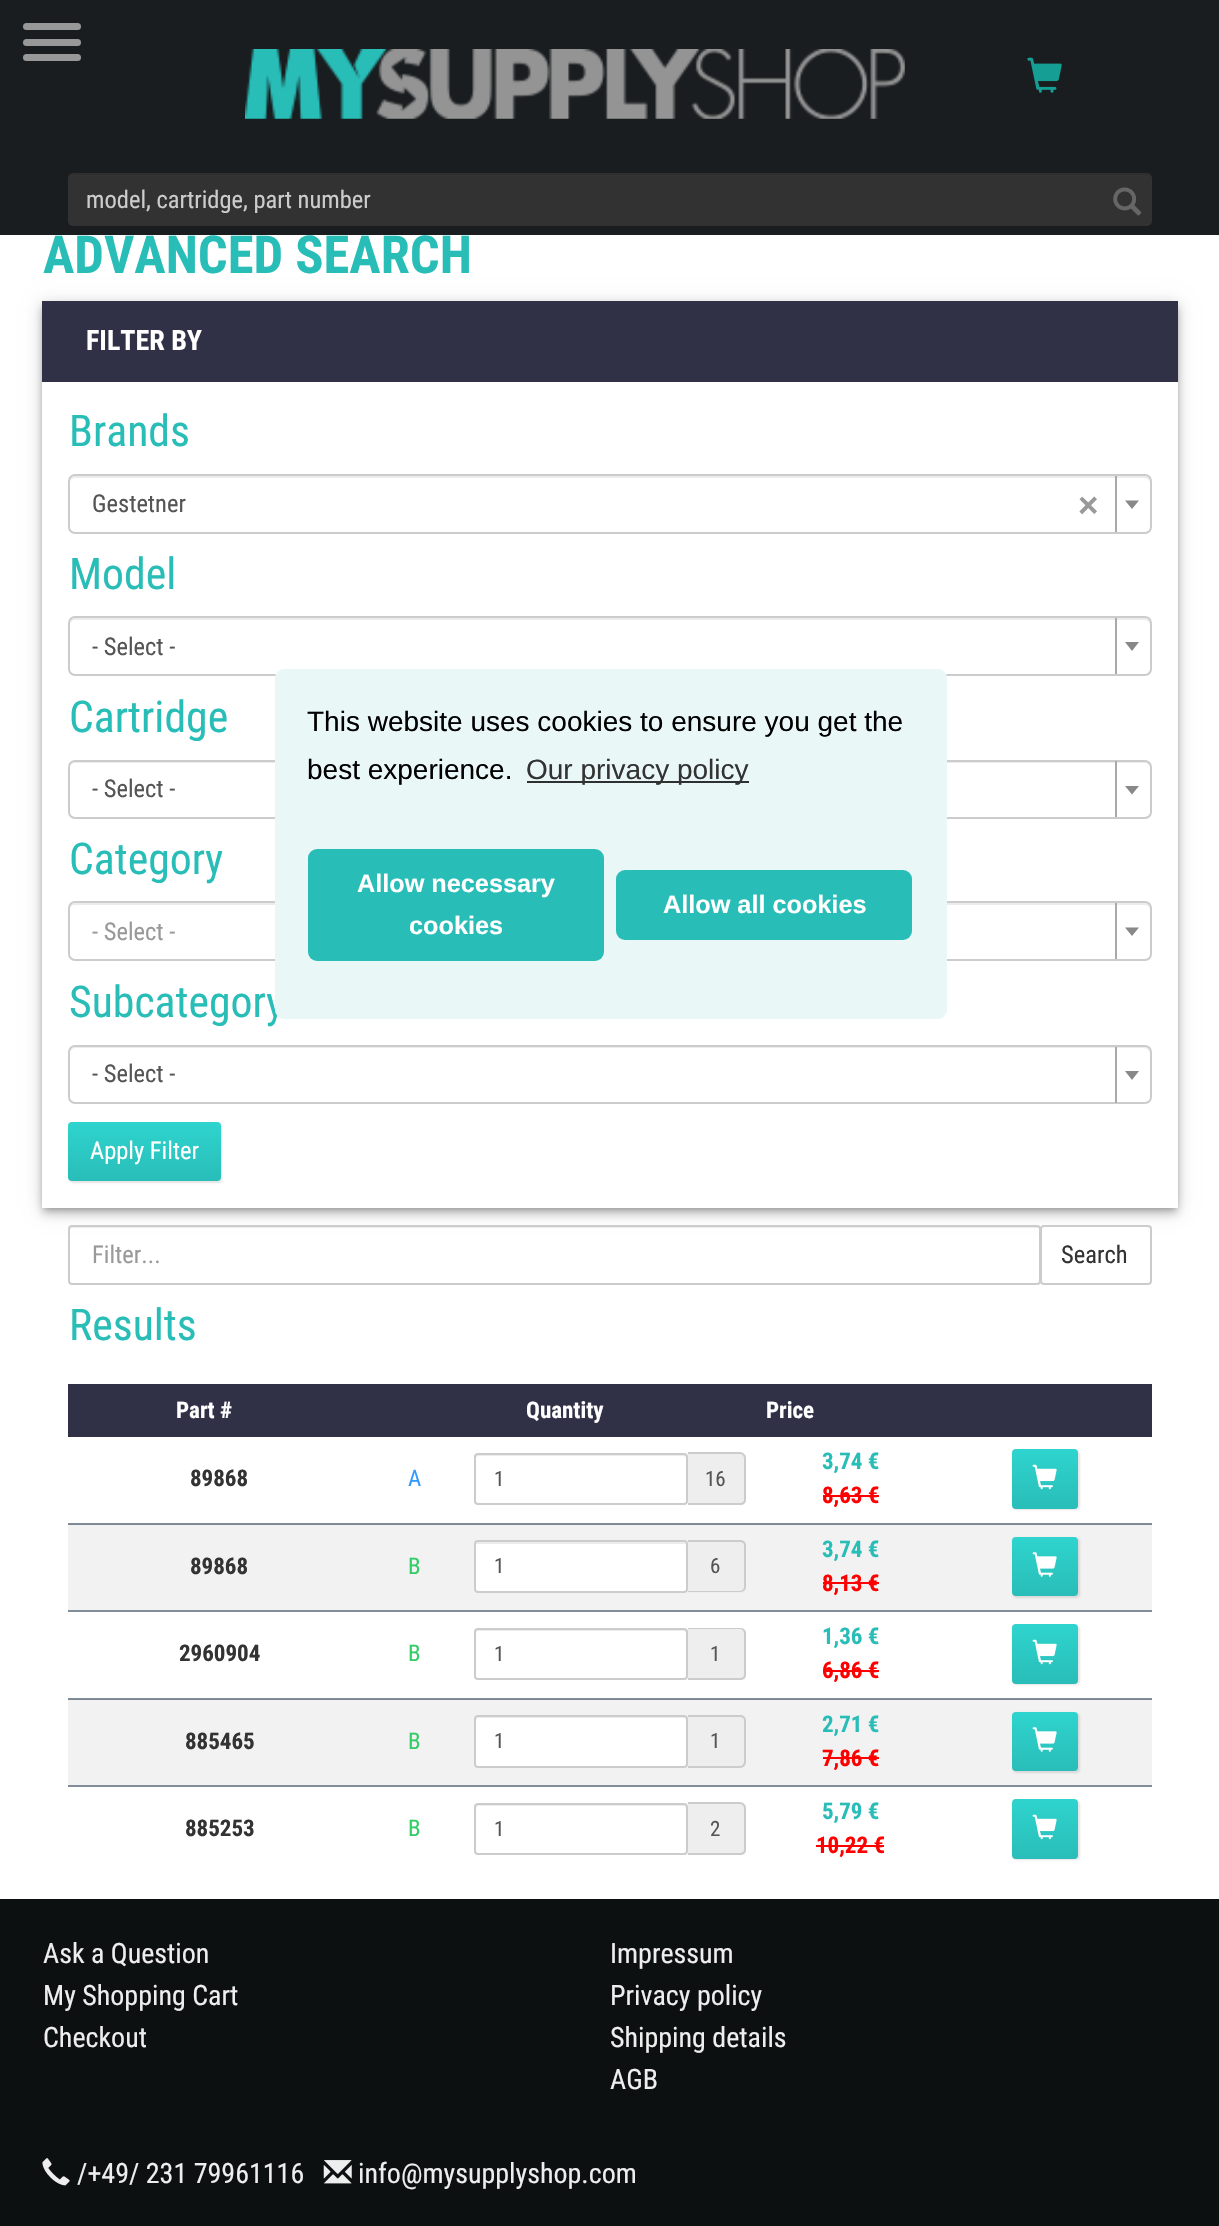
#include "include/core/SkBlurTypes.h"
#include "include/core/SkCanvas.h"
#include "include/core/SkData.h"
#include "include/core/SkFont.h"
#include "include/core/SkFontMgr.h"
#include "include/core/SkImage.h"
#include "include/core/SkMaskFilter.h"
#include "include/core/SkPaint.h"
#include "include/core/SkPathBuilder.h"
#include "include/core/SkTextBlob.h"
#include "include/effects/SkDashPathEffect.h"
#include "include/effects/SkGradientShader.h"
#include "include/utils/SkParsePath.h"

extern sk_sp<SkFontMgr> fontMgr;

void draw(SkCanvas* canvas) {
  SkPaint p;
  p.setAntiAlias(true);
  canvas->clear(SK_ColorWHITE);
  p.setColor(SkColorSetRGB(25, 29, 31));
  canvas->drawRect(SkRect::MakeLTRB(0, 0, 1219, 235), p);
  p.setColor(SkColorSetRGB(152, 152, 152));
  canvas->drawRoundRect(SkRect::MakeLTRB(23, 23, 81, 30), 3.5f, 3.5f, p);
  canvas->drawRoundRect(SkRect::MakeLTRB(23, 39, 81, 46), 3.5f, 3.5f, p);
  canvas->drawRoundRect(SkRect::MakeLTRB(23, 54, 81, 61), 3.5f, 3.5f, p);
  canvas->drawImageRect(SkImages::DeferredFromEncodedData(SkData::MakeFromFileName("images/1.png")), SkRect::MakeLTRB(245, 49, 905, 119), SkSamplingOptions());
  canvas->drawImageRect(SkImages::DeferredFromEncodedData(SkData::MakeFromFileName("images/2.png")), SkRect::MakeLTRB(1027, 57, 1062, 93), SkSamplingOptions());
  p.setColor(SkColorSetRGB(50, 50, 51));
  canvas->drawRoundRect(SkRect::MakeLTRB(68, 173, 1152, 226), 5, 5, p);
  p.setColor(SkColorSetARGB(18, 0, 0, 0));
  canvas->drawPath(SkPathBuilder().moveTo(72, 175).lineTo(1148, 175).cubicTo(1150, 175, 1152, 177, 1152, 178).cubicTo(1152, 175, 1151, 173, 1148, 173).lineTo(72, 173).cubicTo(69, 173, 68, 175, 68, 178).cubicTo(68, 177, 70, 175, 72, 175).close().detach(), p);
  canvas->drawImageRect(SkImages::DeferredFromEncodedData(SkData::MakeFromFileName("images/3.png")), SkRect::MakeLTRB(1113, 187, 1142, 216), SkSamplingOptions());
  p.setColor(SkColorSetRGB(242, 242, 242));
  canvas->drawRect(SkRect::MakeLTRB(68, 1700, 1152, 1785), p);
  canvas->drawRect(SkRect::MakeLTRB(68, 1525, 1152, 1610), p);
  p.setColor(SkColorSetARGB(77, 0, 0, 0));
  p.setMaskFilter(SkMaskFilter::MakeBlur(kNormal_SkBlurStyle, 3.5f));
  canvas->drawRect(SkRect::MakeLTRB(44, 306, 1176, 1209), p);
  p.setMaskFilter(nullptr);
  p.setColor(SkColorSetARGB(31, 0, 0, 0));
  p.setMaskFilter(SkMaskFilter::MakeBlur(kNormal_SkBlurStyle, 9));
  canvas->drawRect(SkRect::MakeLTRB(42, 303, 1178, 1209), p);
  p.setMaskFilter(nullptr);
  p.setColor(SkColorSetARGB(36, 0, 0, 0));
  p.setMaskFilter(SkMaskFilter::MakeBlur(kNormal_SkBlurStyle, 4.5f));
  canvas->drawRect(SkRect::MakeLTRB(42, 308, 1178, 1215), p);
  p.setMaskFilter(nullptr);
  p.setColor(SK_ColorWHITE);
  canvas->drawRect(SkRect::MakeLTRB(42, 382, 1178, 1208), p);
  p.setColor(SkColorSetRGB(48, 48, 71));
  canvas->drawRect(SkRect::MakeLTRB(42, 301, 1178, 382), p);
  p.setColor(SkColorSetRGB(236, 236, 236));
  canvas->drawPath(SkPathBuilder().moveTo(75, 478).lineTo(1144, 478).cubicTo(1147, 478, 1150, 480, 1150, 483).lineTo(1150, 481).cubicTo(1150, 478, 1148, 476, 1145, 476).lineTo(75, 476).cubicTo(72, 476, 70, 478, 70, 481).lineTo(70, 483).cubicTo(70, 480, 72, 478, 75, 478).close().detach(), p);
  p.setStyle(SkPaint::kStroke_Style);
  p.setStrokeWidth(2);
  p.setColor(SkColorSetRGB(204, 204, 204));
  canvas->drawRoundRect(SkRect::MakeLTRB(69, 475, 1151, 533), 6, 6, p);
  p.setStyle(SkPaint::kFill_Style);
  p.setColor(SkColorSetRGB(170, 170, 170));
  canvas->drawRect(SkRect::MakeLTRB(1115, 476, 1117, 532), p);
  p.setColor(SkColorSetRGB(136, 136, 136));
  canvas->drawPath(SkPathBuilder().moveTo(1125, 500.5f).lineTo(1139, 500.5f).lineTo(1132, 509).close().detach(), p);
  p.setColor(SkColorSetRGB(236, 236, 236));
  canvas->drawPath(SkPathBuilder().moveTo(75, 620).lineTo(1144, 620).cubicTo(1147, 620, 1150, 622, 1150, 625).lineTo(1150, 623).cubicTo(1150, 620, 1148, 618, 1145, 618).lineTo(75, 618).cubicTo(72, 618, 70, 620, 70, 623).lineTo(70, 625).cubicTo(70, 622, 72, 620, 75, 620).close().detach(), p);
  p.setStyle(SkPaint::kStroke_Style);
  p.setColor(SkColorSetRGB(204, 204, 204));
  canvas->drawRoundRect(SkRect::MakeLTRB(69, 617, 1151, 675), 6, 6, p);
  p.setStyle(SkPaint::kFill_Style);
  p.setColor(SkColorSetRGB(170, 170, 170));
  canvas->drawRect(SkRect::MakeLTRB(1115, 618, 1117, 674), p);
  p.setColor(SkColorSetRGB(136, 136, 136));
  canvas->drawPath(SkPathBuilder().moveTo(1125, 642).lineTo(1139, 642).lineTo(1132, 651).close().detach(), p);
  p.setColor(SkColorSetRGB(236, 236, 236));
  canvas->drawPath(SkPathBuilder().moveTo(75, 763).lineTo(1144, 763).cubicTo(1147, 763, 1150, 765, 1150, 768).lineTo(1150, 766).cubicTo(1150, 763, 1148, 761, 1145, 761).lineTo(75, 761).cubicTo(72, 761, 70, 763, 70, 766).lineTo(70, 768).cubicTo(70, 765, 72, 763, 75, 763).close().detach(), p);
  p.setStyle(SkPaint::kStroke_Style);
  p.setColor(SkColorSetRGB(204, 204, 204));
  canvas->drawRoundRect(SkRect::MakeLTRB(69, 761, 1151, 818), 6, 6, p);
  p.setStyle(SkPaint::kFill_Style);
  p.setColor(SkColorSetRGB(170, 170, 170));
  canvas->drawRect(SkRect::MakeLTRB(1115, 761, 1117, 817), p);
  p.setColor(SkColorSetRGB(136, 136, 136));
  canvas->drawPath(SkPathBuilder().moveTo(1125, 786).lineTo(1139, 786).lineTo(1132, 794.5f).close().detach(), p);
  p.setColor(SkColorSetRGB(236, 236, 236));
  canvas->drawPath(SkPathBuilder().moveTo(75, 905).lineTo(1144, 905).cubicTo(1147, 905, 1150, 907, 1150, 910).lineTo(1150, 908).cubicTo(1150, 905, 1148, 903, 1145, 903).lineTo(75, 903).cubicTo(72, 903, 70, 905, 70, 908).lineTo(70, 910).cubicTo(70, 907, 72, 905, 75, 905).close().detach(), p);
  p.setStyle(SkPaint::kStroke_Style);
  p.setColor(SkColorSetRGB(204, 204, 204));
  canvas->drawRoundRect(SkRect::MakeLTRB(69, 902, 1151, 960), 6, 6, p);
  p.setStyle(SkPaint::kFill_Style);
  p.setColor(SkColorSetRGB(170, 170, 170));
  canvas->drawRect(SkRect::MakeLTRB(1115, 903, 1117, 959), p);
  p.setColor(SkColorSetRGB(136, 136, 136));
  canvas->drawPath(SkPathBuilder().moveTo(1125, 927.5f).lineTo(1139, 927.5f).lineTo(1132, 936).close().detach(), p);
  p.setColor(SkColorSetRGB(236, 236, 236));
  canvas->drawPath(SkPathBuilder().moveTo(75, 1048).lineTo(1144, 1048).cubicTo(1147, 1048, 1150, 1051, 1150, 1054).lineTo(1150, 1052).cubicTo(1150, 1049, 1148, 1047, 1145, 1047).lineTo(75, 1047).cubicTo(72, 1047, 70, 1049, 70, 1052).lineTo(70, 1054).cubicTo(70, 1051, 72, 1048, 75, 1048).close().detach(), p);
  p.setStyle(SkPaint::kStroke_Style);
  p.setColor(SkColorSetRGB(204, 204, 204));
  canvas->drawRoundRect(SkRect::MakeLTRB(69, 1046, 1151, 1103), 6, 6, p);
  p.setStyle(SkPaint::kFill_Style);
  p.setColor(SkColorSetRGB(170, 170, 170));
  canvas->drawRect(SkRect::MakeLTRB(1115, 1047, 1117, 1103), p);
  p.setColor(SkColorSetRGB(136, 136, 136));
  canvas->drawPath(SkPathBuilder().moveTo(1125, 1071).lineTo(1139, 1071).lineTo(1132, 1080).close().detach(), p);
  p.setColor(SkColorSetARGB(26, 0, 0, 0));
  p.setMaskFilter(SkMaskFilter::MakeBlur(kNormal_SkBlurStyle, 1));
  canvas->drawRoundRect(SkRect::MakeLTRB(70, 1124, 222, 1183), 4, 4, p);
  p.setMaskFilter(nullptr);
  {
    const SkColor colors[] = {SkColorSetRGB(47, 212, 206), SkColorSetRGB(41, 189, 184)};
    const float stops[] = {0, 1};
    const SkPoint ends[] = {{144, 1122}, {144, 1181}};
    p.setShader(SkGradientShader::MakeLinear(ends, colors, stops, 2, SkTileMode::kClamp));
    p.setAlpha(255);
  }
  canvas->drawRoundRect(SkRect::MakeLTRB(68, 1122, 221, 1181), 4, 4, p);
  p.setShader(nullptr);
  p.setColor(SkColorSetRGB(235, 235, 235));
  canvas->drawPath(SkPathBuilder().moveTo(72, 1228).lineTo(1038, 1228).cubicTo(1039, 1228, 1040, 1229, 1040, 1230).lineTo(1040, 1229).cubicTo(1040, 1228, 1039, 1227, 1038, 1227).lineTo(72, 1227).cubicTo(71, 1227, 70, 1228, 70, 1229).lineTo(70, 1230).cubicTo(70, 1229, 71, 1228, 72, 1228).close().detach(), p);
  p.setStyle(SkPaint::kStroke_Style);
  p.setColor(SkColorSetRGB(204, 204, 204));
  canvas->drawRoundRect(SkRect::MakeLTRB(69, 1226, 1040, 1284), 3, 3, p);
  p.setStyle(SkPaint::kFill_Style);
  p.setColor(SK_ColorWHITE);
  canvas->drawRoundRect(SkRect::MakeLTRB(1041, 1226, 1151, 1284), 3, 3, p);
  p.setStyle(SkPaint::kStroke_Style);
  p.setColor(SkColorSetRGB(204, 204, 204));
  canvas->drawRoundRect(SkRect::MakeLTRB(1041, 1226, 1151, 1284), 3, 3, p);
  p.setStyle(SkPaint::kFill_Style);
  p.setColor(SkColorSetRGB(48, 48, 71));
  canvas->drawRect(SkRect::MakeLTRB(68, 1384, 1152, 1437), p);
  p.setColor(SkColorSetRGB(131, 141, 153));
  canvas->drawRect(SkRect::MakeLTRB(68, 1523, 1152, 1524), p);
  p.setColor(SkColorSetRGB(124, 134, 145));
  canvas->drawRect(SkRect::MakeLTRB(68, 1524, 1152, 1525), p);
  p.setColor(SkColorSetRGB(236, 236, 236));
  canvas->drawPath(SkPathBuilder().moveTo(478, 1456).lineTo(684, 1456).lineTo(686, 1457).lineTo(686, 1458).lineTo(686, 1456).cubicTo(686, 1455, 685, 1454, 684, 1454).lineTo(478, 1454).cubicTo(477, 1454, 476, 1455, 476, 1456).lineTo(476, 1458).cubicTo(476, 1457, 477, 1456, 478, 1456).close().detach(), p);
  p.setStyle(SkPaint::kStroke_Style);
  p.setColor(SkColorSetRGB(204, 204, 204));
  canvas->drawRoundRect(SkRect::MakeLTRB(475, 1454, 687, 1504), 3, 3, p);
  p.setStyle(SkPaint::kFill_Style);
  p.setColor(SkColorSetRGB(238, 238, 238));
  canvas->drawPath(SkPathBuilder().moveTo(688, 1453).lineTo(741, 1453).cubicTo(744, 1453, 746, 1455, 746, 1458).lineTo(746, 1500).cubicTo(746, 1503, 744, 1505, 741, 1505).lineTo(688, 1505).close().detach(), p);
  p.setColor(SkColorSetRGB(204, 204, 204));
  canvas->drawPath(SkPathBuilder(SkPathFillType::kEvenOdd).moveTo(688, 1452).lineTo(740, 1452).cubicTo(743, 1452, 746, 1455, 746, 1458).lineTo(746, 1500).cubicTo(746, 1503, 743, 1505, 740, 1505).lineTo(688, 1505).close().moveTo(688, 1454).lineTo(740, 1454).cubicTo(742, 1454, 744, 1456, 744, 1458).lineTo(744, 1500).cubicTo(744, 1502, 742, 1503, 740, 1503).lineTo(688, 1503).close().detach(), p);
  p.setColor(SkColorSetRGB(255, 0, 0));
  canvas->drawRect(SkRect::MakeLTRB(823, 1495, 879, 1497), p);
  p.setColor(SkColorSetARGB(26, 0, 0, 0));
  p.setMaskFilter(SkMaskFilter::MakeBlur(kNormal_SkBlurStyle, 1));
  canvas->drawRoundRect(SkRect::MakeLTRB(1013, 1451, 1080, 1510), 4, 4, p);
  p.setMaskFilter(nullptr);
  {
    const SkColor colors[] = {SkColorSetRGB(47, 212, 206), SkColorSetRGB(41, 189, 184)};
    const float stops[] = {0, 1};
    const SkPoint ends[] = {{1045, 1449}, {1045, 1509}};
    p.setShader(SkGradientShader::MakeLinear(ends, colors, stops, 2, SkTileMode::kClamp));
    p.setAlpha(255);
  }
  canvas->drawRoundRect(SkRect::MakeLTRB(1012, 1449, 1078, 1509), 4, 4, p);
  canvas->drawImageRect(SkImages::DeferredFromEncodedData(SkData::MakeFromFileName("images/4.png")), SkRect::MakeLTRB(1032, 1464, 1057, 1490), SkSamplingOptions());
  p.setShader(nullptr);
  p.setColor(SkColorSetRGB(131, 141, 153));
  canvas->drawRect(SkRect::MakeLTRB(68, 1610, 1152, 1612), p);
  p.setColor(SK_ColorWHITE);
  canvas->drawRoundRect(SkRect::MakeLTRB(474, 1540, 688, 1593), 4, 4, p);
  p.setColor(SkColorSetRGB(236, 236, 236));
  canvas->drawPath(SkPathBuilder().moveTo(478, 1544).lineTo(684, 1544).cubicTo(685, 1544, 686, 1544, 686, 1545).cubicTo(686, 1544, 686, 1542, 684, 1542).lineTo(478, 1542).cubicTo(476, 1542, 476, 1544, 476, 1545).cubicTo(476, 1544, 477, 1544, 478, 1544).close().detach(), p);
  p.setStyle(SkPaint::kStroke_Style);
  p.setColor(SkColorSetRGB(204, 204, 204));
  canvas->drawRoundRect(SkRect::MakeLTRB(475, 1541, 687, 1592), 3, 3, p);
  p.setStyle(SkPaint::kFill_Style);
  p.setColor(SkColorSetRGB(238, 238, 238));
  canvas->drawPath(SkPathBuilder().moveTo(688, 1540).lineTo(741, 1540).cubicTo(744, 1540, 746, 1542, 746, 1545).lineTo(746, 1588).cubicTo(746, 1591, 744, 1593, 741, 1593).lineTo(688, 1593).close().detach(), p);
  p.setColor(SkColorSetRGB(204, 204, 204));
  canvas->drawPath(SkPathBuilder(SkPathFillType::kEvenOdd).moveTo(688, 1540).lineTo(740, 1540).cubicTo(743, 1540, 746, 1542, 746, 1545).lineTo(746, 1587).cubicTo(746, 1590, 743, 1592, 740, 1592).lineTo(688, 1592).close().moveTo(688, 1542).lineTo(740, 1542).cubicTo(742, 1542, 744, 1543, 744, 1545).lineTo(744, 1587).cubicTo(744, 1589, 742, 1591, 740, 1591).lineTo(688, 1591).close().detach(), p);
  p.setColor(SkColorSetRGB(255, 0, 0));
  canvas->drawRect(SkRect::MakeLTRB(823, 1582, 879, 1584), p);
  p.setColor(SkColorSetARGB(26, 0, 0, 0));
  p.setMaskFilter(SkMaskFilter::MakeBlur(kNormal_SkBlurStyle, 1));
  canvas->drawRoundRect(SkRect::MakeLTRB(1013, 1538, 1080, 1598), 4, 4, p);
  p.setMaskFilter(nullptr);
  {
    const SkColor colors[] = {SkColorSetRGB(47, 212, 206), SkColorSetRGB(41, 189, 184)};
    const float stops[] = {0, 1};
    const SkPoint ends[] = {{1045, 1537}, {1045, 1596}};
    p.setShader(SkGradientShader::MakeLinear(ends, colors, stops, 2, SkTileMode::kClamp));
    p.setAlpha(255);
  }
  canvas->drawRoundRect(SkRect::MakeLTRB(1012, 1537, 1078, 1596), 4, 4, p);
  canvas->drawImageRect(SkImages::DeferredFromEncodedData(SkData::MakeFromFileName("images/5.png")), SkRect::MakeLTRB(1032, 1552, 1057, 1577), SkSamplingOptions());
  p.setShader(nullptr);
  p.setColor(SkColorSetRGB(131, 141, 153));
  canvas->drawRect(SkRect::MakeLTRB(68, 1698, 1152, 1699), p);
  p.setColor(SkColorSetRGB(124, 134, 145));
  canvas->drawRect(SkRect::MakeLTRB(68, 1699, 1152, 1700), p);
  p.setColor(SkColorSetRGB(236, 236, 236));
  canvas->drawPath(SkPathBuilder().moveTo(478, 1631).lineTo(684, 1631).lineTo(686, 1632).lineTo(686, 1633).lineTo(686, 1631).cubicTo(686, 1630, 685, 1629, 684, 1629).lineTo(478, 1629).cubicTo(477, 1629, 476, 1630, 476, 1631).lineTo(476, 1633).cubicTo(476, 1632, 477, 1631, 478, 1631).close().detach(), p);
  p.setStyle(SkPaint::kStroke_Style);
  p.setColor(SkColorSetRGB(204, 204, 204));
  canvas->drawRoundRect(SkRect::MakeLTRB(475, 1629, 687, 1679), 3, 3, p);
  p.setStyle(SkPaint::kFill_Style);
  p.setColor(SkColorSetRGB(238, 238, 238));
  canvas->drawPath(SkPathBuilder().moveTo(688, 1628).lineTo(741, 1628).cubicTo(744, 1628, 746, 1630, 746, 1633).lineTo(746, 1675).cubicTo(746, 1678, 744, 1680, 741, 1680).lineTo(688, 1680).close().detach(), p);
  p.setColor(SkColorSetRGB(204, 204, 204));
  canvas->drawPath(SkPathBuilder(SkPathFillType::kEvenOdd).moveTo(688, 1628).lineTo(740, 1628).cubicTo(743, 1628, 746, 1630, 746, 1633).lineTo(746, 1675).cubicTo(746, 1678, 743, 1680, 740, 1680).lineTo(688, 1680).close().moveTo(688, 1629).lineTo(740, 1629).cubicTo(742, 1629, 744, 1631, 744, 1633).lineTo(744, 1675).cubicTo(744, 1677, 742, 1678, 740, 1678).lineTo(688, 1678).close().detach(), p);
  p.setColor(SkColorSetRGB(255, 0, 0));
  canvas->drawRect(SkRect::MakeLTRB(823, 1670, 879, 1672), p);
  p.setColor(SkColorSetARGB(26, 0, 0, 0));
  p.setMaskFilter(SkMaskFilter::MakeBlur(kNormal_SkBlurStyle, 1));
  canvas->drawRoundRect(SkRect::MakeLTRB(1013, 1626, 1080, 1685), 4, 4, p);
  p.setMaskFilter(nullptr);
  {
    const SkColor colors[] = {SkColorSetRGB(47, 212, 206), SkColorSetRGB(41, 189, 184)};
    const float stops[] = {0, 1};
    const SkPoint ends[] = {{1045, 1624}, {1045, 1684}};
    p.setShader(SkGradientShader::MakeLinear(ends, colors, stops, 2, SkTileMode::kClamp));
    p.setAlpha(255);
  }
  canvas->drawRoundRect(SkRect::MakeLTRB(1012, 1624, 1078, 1684), 4, 4, p);
  canvas->drawImageRect(SkImages::DeferredFromEncodedData(SkData::MakeFromFileName("images/4.png")), SkRect::MakeLTRB(1032, 1639, 1057, 1665), SkSamplingOptions());
  p.setShader(nullptr);
  p.setColor(SkColorSetRGB(131, 141, 153));
  canvas->drawRect(SkRect::MakeLTRB(68, 1785, 1152, 1787), p);
  p.setColor(SK_ColorWHITE);
  canvas->drawRoundRect(SkRect::MakeLTRB(474, 1715, 688, 1768), 4, 4, p);
  p.setColor(SkColorSetRGB(236, 236, 236));
  canvas->drawPath(SkPathBuilder().moveTo(478, 1718).lineTo(684, 1718).lineTo(686, 1719).lineTo(686, 1720).cubicTo(686, 1719, 686, 1717, 684, 1717).lineTo(478, 1717).cubicTo(476, 1717, 476, 1719, 476, 1720).cubicTo(476, 1719, 477, 1718, 478, 1718).close().detach(), p);
  p.setStyle(SkPaint::kStroke_Style);
  p.setColor(SkColorSetRGB(204, 204, 204));
  canvas->drawRoundRect(SkRect::MakeLTRB(475, 1716, 687, 1767), 3, 3, p);
  p.setStyle(SkPaint::kFill_Style);
  p.setColor(SkColorSetRGB(238, 238, 238));
  canvas->drawPath(SkPathBuilder().moveTo(688, 1715).lineTo(741, 1715).cubicTo(744, 1715, 746, 1717, 746, 1720).lineTo(746, 1763).cubicTo(746, 1766, 744, 1768, 741, 1768).lineTo(688, 1768).close().detach(), p);
  p.setColor(SkColorSetRGB(204, 204, 204));
  canvas->drawPath(SkPathBuilder(SkPathFillType::kEvenOdd).moveTo(688, 1715).lineTo(740, 1715).cubicTo(743, 1715, 746, 1717, 746, 1720).lineTo(746, 1762).cubicTo(746, 1765, 743, 1768, 740, 1768).lineTo(688, 1768).close().moveTo(688, 1717).lineTo(740, 1717).cubicTo(742, 1717, 744, 1718, 744, 1720).lineTo(744, 1762).cubicTo(744, 1764, 742, 1766, 740, 1766).lineTo(688, 1766).close().detach(), p);
  p.setColor(SkColorSetRGB(255, 0, 0));
  canvas->drawRect(SkRect::MakeLTRB(823, 1757, 879, 1759), p);
  p.setColor(SkColorSetARGB(26, 0, 0, 0));
  p.setMaskFilter(SkMaskFilter::MakeBlur(kNormal_SkBlurStyle, 1));
  canvas->drawRoundRect(SkRect::MakeLTRB(1013, 1713, 1080, 1773), 4, 4, p);
  p.setMaskFilter(nullptr);
  {
    const SkColor colors[] = {SkColorSetRGB(47, 212, 206), SkColorSetRGB(41, 189, 184)};
    const float stops[] = {0, 1};
    const SkPoint ends[] = {{1045, 1712}, {1045, 1771}};
    p.setShader(SkGradientShader::MakeLinear(ends, colors, stops, 2, SkTileMode::kClamp));
    p.setAlpha(255);
  }
  canvas->drawRoundRect(SkRect::MakeLTRB(1012, 1712, 1078, 1771), 4, 4, p);
  canvas->drawImageRect(SkImages::DeferredFromEncodedData(SkData::MakeFromFileName("images/5.png")), SkRect::MakeLTRB(1032, 1727, 1057, 1752), SkSamplingOptions());
  p.setShader(nullptr);
  p.setColor(SkColorSetRGB(236, 236, 236));
  canvas->drawPath(SkPathBuilder().moveTo(478, 1806).lineTo(684, 1806).lineTo(686, 1807).lineTo(686, 1808).lineTo(686, 1806).cubicTo(686, 1805, 685, 1804, 684, 1804).lineTo(478, 1804).cubicTo(477, 1804, 476, 1805, 476, 1806).lineTo(476, 1808).cubicTo(476, 1807, 477, 1806, 478, 1806).close().detach(), p);
  p.setStyle(SkPaint::kStroke_Style);
  p.setColor(SkColorSetRGB(204, 204, 204));
  canvas->drawRoundRect(SkRect::MakeLTRB(475, 1804, 687, 1854), 3, 3, p);
  p.setStyle(SkPaint::kFill_Style);
  p.setColor(SkColorSetRGB(238, 238, 238));
  canvas->drawPath(SkPathBuilder().moveTo(688, 1803).lineTo(741, 1803).cubicTo(744, 1803, 746, 1805, 746, 1808).lineTo(746, 1850).cubicTo(746, 1853, 744, 1855, 741, 1855).lineTo(688, 1855).close().detach(), p);
  p.setColor(SkColorSetRGB(204, 204, 204));
  canvas->drawPath(SkPathBuilder(SkPathFillType::kEvenOdd).moveTo(688, 1802).lineTo(740, 1802).cubicTo(743, 1802, 746, 1805, 746, 1808).lineTo(746, 1850).cubicTo(746, 1853, 743, 1855, 740, 1855).lineTo(688, 1855).close().moveTo(688, 1804).lineTo(740, 1804).cubicTo(742, 1804, 744, 1806, 744, 1808).lineTo(744, 1850).cubicTo(744, 1852, 742, 1853, 740, 1853).lineTo(688, 1853).close().detach(), p);
  p.setColor(SkColorSetRGB(255, 0, 0));
  canvas->drawRect(SkRect::MakeLTRB(816, 1845, 884, 1847), p);
  p.setColor(SkColorSetARGB(26, 0, 0, 0));
  p.setMaskFilter(SkMaskFilter::MakeBlur(kNormal_SkBlurStyle, 1));
  canvas->drawRoundRect(SkRect::MakeLTRB(1013, 1801, 1080, 1860), 4, 4, p);
  p.setMaskFilter(nullptr);
  {
    const SkColor colors[] = {SkColorSetRGB(47, 212, 206), SkColorSetRGB(41, 189, 184)};
    const float stops[] = {0, 1};
    const SkPoint ends[] = {{1045, 1799}, {1045, 1859}};
    p.setShader(SkGradientShader::MakeLinear(ends, colors, stops, 2, SkTileMode::kClamp));
    p.setAlpha(255);
  }
  canvas->drawRoundRect(SkRect::MakeLTRB(1012, 1799, 1078, 1859), 4, 4, p);
  canvas->drawImageRect(SkImages::DeferredFromEncodedData(SkData::MakeFromFileName("images/4.png")), SkRect::MakeLTRB(1032, 1814, 1057, 1840), SkSamplingOptions());
  p.setShader(nullptr);
  p.setColor(SkColorSetRGB(13, 16, 17));
  canvas->drawRect(SkRect::MakeLTRB(0, 1899, 1219, 2226), p);
  canvas->drawImageRect(SkImages::DeferredFromEncodedData(SkData::MakeFromFileName("images/6.png")), SkRect::MakeLTRB(42, 2158, 70, 2186), SkSamplingOptions());
  canvas->drawImageRect(SkImages::DeferredFromEncodedData(SkData::MakeFromFileName("images/7.png")), SkRect::MakeLTRB(323, 2160, 352, 2184), SkSamplingOptions());
  SkFont font1(fontMgr->matchFamilyStyle("Roboto Condensed", SkFontStyle::Normal()), 24.5f);
  font1.setSubpixel(true);
  p.setColor(SkColorSetRGB(204, 204, 204));
  canvas->drawString("model, cartridge, part number", 86, 208, font1, p);
  SkFont font2(fontMgr->matchFamilyStyle("Roboto Condensed", SkFontStyle::Bold()), 52.5f);
  font2.setSubpixel(true);
  p.setColor(SkColorSetRGB(41, 189, 184));
  canvas->drawString("ADVANCED SEARCH", 43, 273, font2, p);
  SkFont font3(fontMgr->matchFamilyStyle("Roboto Condensed", SkFontStyle::Bold()), 28);
  font3.setSubpixel(true);
  p.setColor(SK_ColorWHITE);
  canvas->drawString("FILTER BY", 86, 350, font3, p);
  SkFont font4(fontMgr->matchFamilyStyle("Roboto Condensed", SkFontStyle::Normal()), 43.75f);
  font4.setSubpixel(true);
  p.setColor(SkColorSetRGB(41, 189, 184));
  canvas->drawString("Brands", 69, 446, font4, p);
  p.setColor(SkColorSetRGB(85, 85, 85));
  canvas->drawString("Gestetner", 92, 512, font1, p);
  SkFont font5(fontMgr->matchFamilyStyle("Liberation Sans", SkFontStyle::Bold()), 35);
  font5.setSubpixel(true);
  p.setColor(SkColorSetRGB(153, 153, 153));
  canvas->drawString("×", 1078, 517, font5, p);
  p.setColor(SkColorSetRGB(41, 189, 184));
  canvas->drawString("Model", 69, 589, font4, p);
  p.setColor(SkColorSetRGB(85, 85, 85));
  canvas->drawString("- Select -", 92, 655, font1, p);
  p.setColor(SkColorSetRGB(41, 189, 184));
  canvas->drawString("Cartridge", 69, 732, font4, p);
  p.setColor(SkColorSetRGB(85, 85, 85));
  canvas->drawString("- Select -", 92, 797, font1, p);
  p.setColor(SkColorSetRGB(41, 189, 184));
  canvas->drawString("Category", 69, 874, font4, p);
  p.setColor(SkColorSetRGB(153, 153, 153));
  canvas->drawString("- Select -", 92, 940, font1, p);
  p.setColor(SkColorSetRGB(41, 189, 184));
  canvas->drawString("Subcategory", 69, 1017, font4, p);
  p.setColor(SkColorSetRGB(85, 85, 85));
  canvas->drawString("- Select -", 92, 1082, font1, p);
  p.setColor(SK_ColorWHITE);
  canvas->drawString("Apply Filter", 90, 1159, font1, p);
  p.setColor(SkColorSetRGB(153, 153, 153));
  canvas->drawString("Filter...", 92, 1263, font1, p);
  p.setColor(SkColorSetRGB(51, 51, 51));
  canvas->drawString("Search", 1061, 1263, font1, p);
  p.setColor(SkColorSetRGB(41, 189, 184));
  canvas->drawString("Results", 69, 1340, font4, p);
  SkFont font6(fontMgr->matchFamilyStyle("Roboto Condensed", SkFontStyle::Bold()), 23);
  font6.setSubpixel(true);
  p.setColor(SK_ColorWHITE);
  canvas->drawString("Part #", 176, 1418, font6, p);
  canvas->drawString("Quantity", 526, 1418, font6, p);
  canvas->drawString("Price", 766, 1418, font6, p);
  p.setColor(SkColorSetRGB(51, 51, 51));
  canvas->drawString("89868", 190, 1486, font6, p);
  SkFont font7(fontMgr->matchFamilyStyle("Roboto Condensed", SkFontStyle::Normal()), 23);
  font7.setSubpixel(true);
  p.setColor(SkColorSetRGB(51, 153, 255));
  canvas->drawString("A", 408, 1486, font7, p);
  SkFont font8(fontMgr->matchFamilyStyle("Roboto Condensed", SkFontStyle::Normal()), 21);
  font8.setSubpixel(true);
  p.setColor(SkColorSetRGB(85, 85, 85));
  canvas->drawString("1", 494, 1486, font8, p);
  canvas->drawString("16", 705, 1486, font8, p);
  p.setColor(SkColorSetRGB(41, 189, 184));
  canvas->drawString("3,74 €", 822, 1469, font6, p);
  p.setColor(SkColorSetRGB(255, 0, 0));
  canvas->drawString("8,63 €", 822, 1503, font6, p);
  p.setColor(SkColorSetRGB(51, 51, 51));
  canvas->drawString("89868", 190, 1574, font6, p);
  p.setColor(SkColorSetRGB(51, 204, 102));
  canvas->drawString("B", 408, 1574, font7, p);
  p.setColor(SkColorSetRGB(85, 85, 85));
  canvas->drawString("1", 494, 1573, font8, p);
  canvas->drawString("6", 710, 1573, font8, p);
  p.setColor(SkColorSetRGB(41, 189, 184));
  canvas->drawString("3,74 €", 822, 1557, font6, p);
  p.setColor(SkColorSetRGB(255, 0, 0));
  canvas->drawString("8,13 €", 822, 1591, font6, p);
  p.setColor(SkColorSetRGB(51, 51, 51));
  canvas->drawString("2960904", 179, 1661, font6, p);
  p.setColor(SkColorSetRGB(51, 204, 102));
  canvas->drawString("B", 408, 1661, font7, p);
  p.setColor(SkColorSetRGB(85, 85, 85));
  canvas->drawString("1", 494, 1661, font8, p);
  canvas->drawString("1", 710, 1661, font8, p);
  p.setColor(SkColorSetRGB(41, 189, 184));
  canvas->drawString("1,36 €", 822, 1644, font6, p);
  p.setColor(SkColorSetRGB(255, 0, 0));
  canvas->drawString("6,86 €", 822, 1678, font6, p);
  p.setColor(SkColorSetRGB(51, 51, 51));
  canvas->drawString("885465", 185, 1749, font6, p);
  p.setColor(SkColorSetRGB(51, 204, 102));
  canvas->drawString("B", 408, 1749, font7, p);
  p.setColor(SkColorSetRGB(85, 85, 85));
  canvas->drawString("1", 494, 1748, font8, p);
  canvas->drawString("1", 710, 1748, font8, p);
  p.setColor(SkColorSetRGB(41, 189, 184));
  canvas->drawString("2,71 €", 822, 1732, font6, p);
  p.setColor(SkColorSetRGB(255, 0, 0));
  canvas->drawString("7,86 €", 822, 1766, font6, p);
  p.setColor(SkColorSetRGB(51, 51, 51));
  canvas->drawString("885253", 185, 1836, font6, p);
  p.setColor(SkColorSetRGB(51, 204, 102));
  canvas->drawString("B", 408, 1836, font7, p);
  p.setColor(SkColorSetRGB(85, 85, 85));
  canvas->drawString("1", 494, 1836, font8, p);
  canvas->drawString("2", 710, 1836, font8, p);
  p.setColor(SkColorSetRGB(41, 189, 184));
  canvas->drawString("5,79 €", 822, 1819, font6, p);
  p.setColor(SkColorSetRGB(255, 0, 0));
  canvas->drawString("10,22 €", 816, 1853, font6, p);
  p.setColor(SkColorSetRGB(234, 247, 247));
  canvas->drawRoundRect(SkRect::MakeLTRB(275, 669, 947, 1019), 9, 9, p);
  SkFont font9(fontMgr->matchFamilyStyle("Liberation Sans", SkFontStyle::Normal()), 28);
  font9.setSubpixel(true);
  p.setColor(SK_ColorBLACK);
  canvas->drawString("This website uses cookies to ensure you get the", 307, 731, font9, p);
  canvas->drawString("best experience.", 307, 779, font9, p);
  p.setColor(SkColorSetRGB(47, 49, 49));
  canvas->drawRect(SkRect::MakeLTRB(527, 781, 749, 783), p);
  p.setColor(SkColorSetRGB(51, 51, 51));
  canvas->drawString("Our privacy policy", 526, 779, font9, p);
  p.setColor(SkColorSetRGB(41, 189, 184));
  canvas->drawRoundRect(SkRect::MakeLTRB(308, 849, 604, 961), 9, 9, p);
  SkFont font10(fontMgr->matchFamilyStyle("Liberation Sans", SkFontStyle::Bold()), 25.25f);
  font10.setSubpixel(true);
  p.setColor(SK_ColorWHITE);
  canvas->drawString("Allow necessary", 357, 892, font10, p);
  canvas->drawString("cookies", 409, 934, font10, p);
  p.setColor(SkColorSetRGB(41, 189, 184));
  canvas->drawRoundRect(SkRect::MakeLTRB(616, 870, 912, 940), 9, 9, p);
  p.setColor(SK_ColorWHITE);
  canvas->drawString("Allow all cookies", 663, 913, font10, p);
  SkFont font11(fontMgr->matchFamilyStyle("Roboto Condensed", SkFontStyle::Normal()), 28);
  font11.setSubpixel(true);
  p.setColor(SkColorSetRGB(238, 238, 238));
  canvas->drawString("Ask a Question", 43, 1963, font11, p);
  canvas->drawString("My Shopping Cart", 43, 2005, font11, p);
  canvas->drawString("Checkout", 43, 2047, font11, p);
  canvas->drawString("Impressum", 610, 1963, font11, p);
  canvas->drawString("Privacy policy", 610, 2005, font11, p);
  canvas->drawString("Shipping details", 610, 2047, font11, p);
  canvas->drawString("AGB", 610, 2089, font11, p);
  canvas->drawString("/+49/ 231 79961116", 77, 2183, font11, p);
  canvas->drawString("info@mysupplyshop.com", 358, 2183, font11, p);
}
